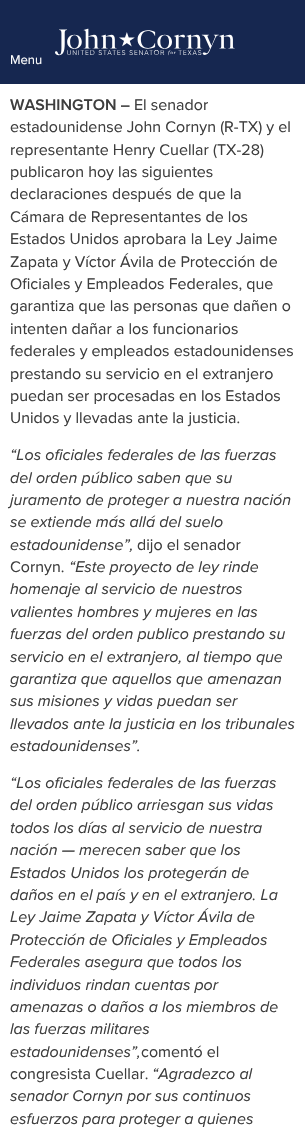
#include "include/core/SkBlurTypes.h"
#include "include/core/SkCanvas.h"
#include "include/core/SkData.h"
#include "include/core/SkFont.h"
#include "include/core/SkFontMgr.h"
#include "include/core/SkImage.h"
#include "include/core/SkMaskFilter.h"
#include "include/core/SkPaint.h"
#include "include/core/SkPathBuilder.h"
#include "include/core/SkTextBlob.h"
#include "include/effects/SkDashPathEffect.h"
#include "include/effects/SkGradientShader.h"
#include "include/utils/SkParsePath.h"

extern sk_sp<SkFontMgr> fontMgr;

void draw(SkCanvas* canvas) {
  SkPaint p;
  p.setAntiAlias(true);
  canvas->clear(SK_ColorWHITE);
  p.setColor(SkColorSetRGB(22, 39, 80));
  canvas->drawRect(SkRect::MakeLTRB(0, 0, 305, 84), p);
  canvas->drawImageRect(SkImages::DeferredFromEncodedData(SkData::MakeFromFileName("images/1.png")), SkRect::MakeLTRB(55, 28, 235, 56), SkSamplingOptions());
  SkFont font1(fontMgr->matchFamilyStyle("Proxima Nova", SkFontStyle::Normal()), 13);
  font1.setSubpixel(true);
  p.setColor(SK_ColorWHITE);
  canvas->drawString("Menu", 10, 64, font1, p);
  SkFont font2(fontMgr->matchFamilyStyle("Proxima Nova", SkFontStyle(600, SkFontStyle::kNormal_Width, SkFontStyle::kUpright_Slant)), 16);
  font2.setSubpixel(true);
  p.setColor(SkColorSetRGB(62, 62, 62));
  canvas->drawString("WASHINGTON –", 10, 110, font2, p);
  SkFont font3(fontMgr->matchFamilyStyle("Proxima Nova", SkFontStyle::Normal()), 16);
  font3.setSubpixel(true);
  canvas->drawString("El senador", 134, 110, font3, p);
  canvas->drawString("estadounidense John Cornyn (R-TX) y el", 10, 132, font3, p);
  canvas->drawString("representante Henry Cuellar (TX-28)", 10, 155, font3, p);
  canvas->drawString("publicaron hoy las siguientes", 10, 177, font3, p);
  canvas->drawString("declaraciones después de que la", 10, 199, font3, p);
  canvas->drawString("Cámara de Representantes de los", 10, 222, font3, p);
  canvas->drawString("Estados Unidos aprobara la Ley Jaime", 10, 244, font3, p);
  canvas->drawString("Zapata y Víctor Ávila de Protección de", 10, 267, font3, p);
  canvas->drawString("Oficiales y Empleados Federales, que", 10, 289, font3, p);
  canvas->drawString("garantiza que las personas que dañen o", 10, 311, font3, p);
  canvas->drawString("intenten dañar a los funcionarios", 10, 334, font3, p);
  canvas->drawString("federales y empleados estadounidenses", 10, 356, font3, p);
  canvas->drawString("prestando su servicio en el extranjero", 10, 379, font3, p);
  canvas->drawString("puedan ser procesadas en los Estados", 10, 401, font3, p);
  canvas->drawString("Unidos y llevadas ante la justicia.", 10, 423, font3, p);
  SkFont font4(fontMgr->matchFamilyStyle("Proxima Nova", SkFontStyle::Italic()), 16);
  font4.setSubpixel(true);
  canvas->drawString("“Los oficiales federales de las fuerzas", 10, 460, font4, p);
  canvas->drawString("del orden público saben que su", 10, 483, font4, p);
  canvas->drawString("juramento de proteger a nuestra nación", 10, 505, font4, p);
  canvas->drawString("se extiende más allá del suelo", 10, 527, font4, p);
  canvas->drawString("estadounidense”,", 10, 550, font4, p);
  canvas->drawString("dijo el senador", 137, 550, font3, p);
  canvas->drawString("Cornyn.", 10, 572, font3, p);
  canvas->drawString("“Este proyecto de ley rinde", 69, 572, font4, p);
  canvas->drawString("homenaje al servicio de nuestros", 10, 594, font4, p);
  canvas->drawString("valientes hombres y mujeres en las", 10, 617, font4, p);
  canvas->drawString("fuerzas del orden publico prestando su", 10, 639, font4, p);
  canvas->drawString("servicio en el extranjero, al tiempo que", 10, 662, font4, p);
  canvas->drawString("garantiza que aquellos que amenazan", 10, 684, font4, p);
  canvas->drawString("sus misiones y vidas puedan ser", 10, 706, font4, p);
  canvas->drawString("llevados ante la justicia en los tribunales", 10, 729, font4, p);
  canvas->drawString("estadounidenses”.", 10, 751, font4, p);
  canvas->drawString("“Los oficiales federales de las fuerzas", 10, 788, font4, p);
  canvas->drawString("del orden público arriesgan sus vidas", 10, 810, font4, p);
  canvas->drawString("todos los días al servicio de nuestra", 10, 833, font4, p);
  canvas->drawString("nación — merecen saber que los", 10, 855, font4, p);
  canvas->drawString("Estados Unidos los protegerán de", 10, 878, font4, p);
  canvas->drawString("daños en el país y en el extranjero. La", 10, 900, font4, p);
  canvas->drawString("Ley Jaime Zapata y Víctor Ávila de", 10, 922, font4, p);
  canvas->drawString("Protección de Oficiales y Empleados", 10, 945, font4, p);
  canvas->drawString("Federales asegura que todos los", 10, 967, font4, p);
  canvas->drawString("individuos rindan cuentas por", 10, 990, font4, p);
  canvas->drawString("amenazas o daños a los miembros de", 10, 1012, font4, p);
  canvas->drawString("las fuerzas militares", 10, 1034, font4, p);
  canvas->drawString("estadounidenses”,", 10, 1057, font4, p);
  canvas->drawString("comentó el", 141, 1057, font3, p);
  canvas->drawString("congresista Cuellar.", 10, 1079, font3, p);
  canvas->drawString("“Agradezco al", 152, 1079, font4, p);
  canvas->drawString("senador Cornyn por sus continuos", 10, 1101, font4, p);
  canvas->drawString("esfuerzos para proteger a quienes", 10, 1124, font4, p);
}
